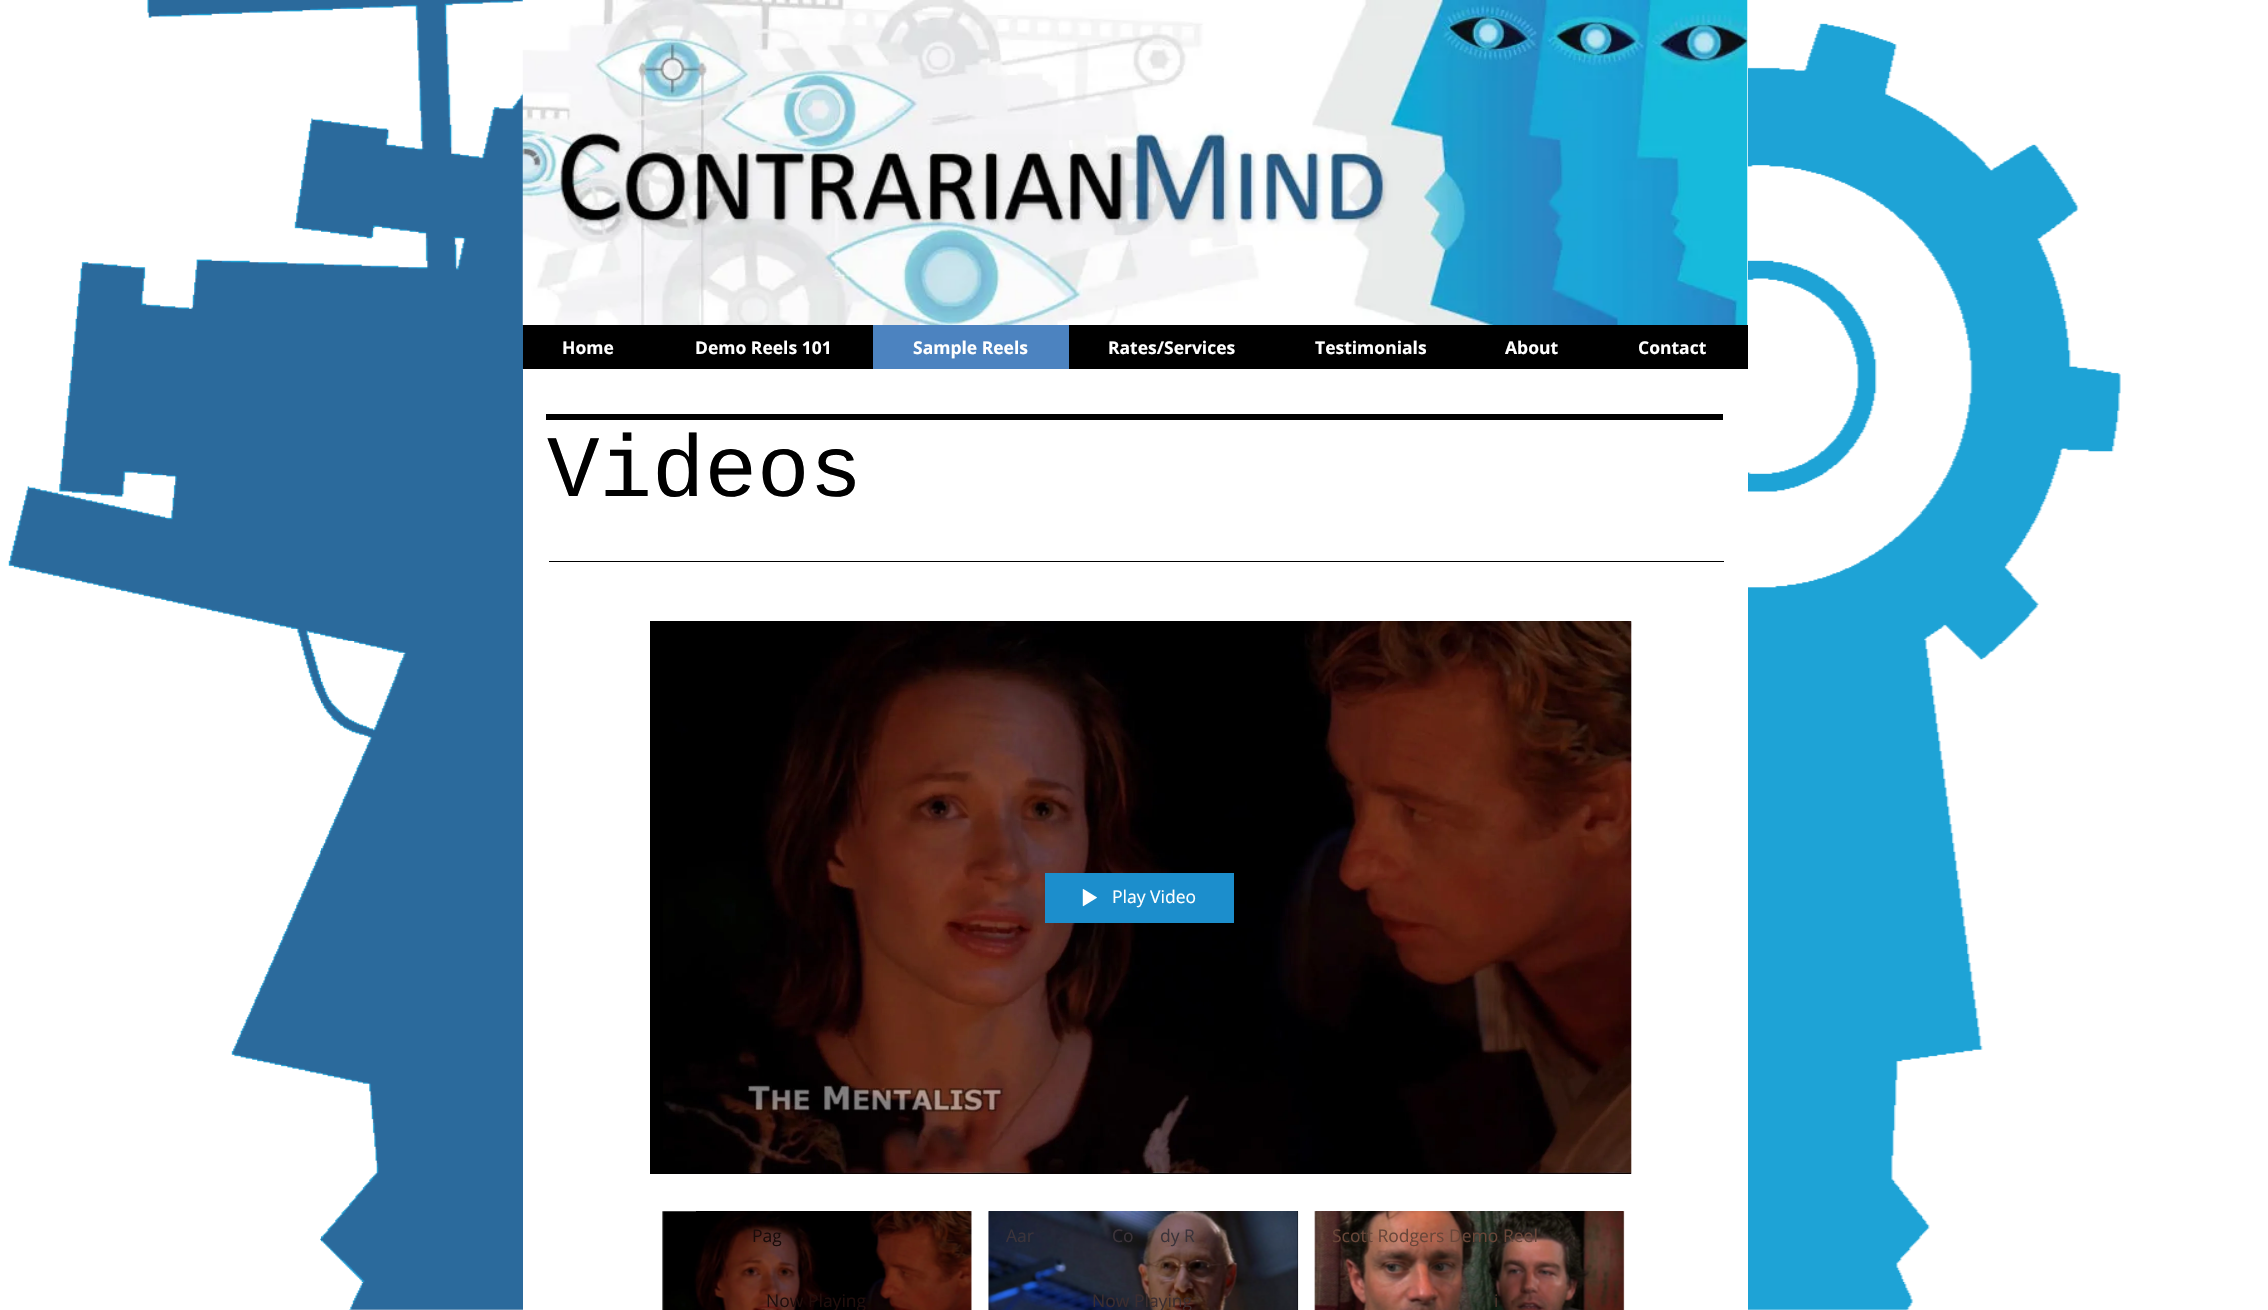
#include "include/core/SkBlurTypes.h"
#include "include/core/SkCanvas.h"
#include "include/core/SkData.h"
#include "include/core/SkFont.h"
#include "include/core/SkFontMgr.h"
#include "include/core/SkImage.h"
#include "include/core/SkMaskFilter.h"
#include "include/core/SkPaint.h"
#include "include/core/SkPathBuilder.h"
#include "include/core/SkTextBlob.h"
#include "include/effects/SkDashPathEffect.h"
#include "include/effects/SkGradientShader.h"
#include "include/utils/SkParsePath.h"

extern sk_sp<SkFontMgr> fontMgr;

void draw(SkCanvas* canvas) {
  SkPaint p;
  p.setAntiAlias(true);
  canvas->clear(SK_ColorWHITE);
  canvas->drawImageRect(SkImages::DeferredFromEncodedData(SkData::MakeFromFileName("images/1.png")), SkRect::MakeLTRB(8, 0, 2121, 1310), SkSamplingOptions());
  p.setColor(SK_ColorWHITE);
  canvas->drawRect(SkRect::MakeLTRB(523, 0, 1748, 399), p);
  canvas->drawImageRect(SkImages::DeferredFromEncodedData(SkData::MakeFromFileName("images/2.png")), SkRect::MakeLTRB(522, 0, 1748, 325), SkSamplingOptions());
  p.setColor(SK_ColorBLACK);
  canvas->drawRect(SkRect::MakeLTRB(523, 325, 1748, 369), p);
  p.setColor(SkColorSetRGB(76, 131, 192));
  canvas->drawRect(SkRect::MakeLTRB(873, 325, 1069, 369), p);
  p.setColor(SK_ColorWHITE);
  canvas->drawPath(SkPathBuilder().moveTo(522.5f, 369).lineTo(554, 369).lineTo(554, 400).close().detach(), p);
  canvas->drawRect(SkRect::MakeLTRB(523, 399, 1748, 1310), p);
  p.setColor(SK_ColorBLACK);
  canvas->drawRect(SkRect::MakeLTRB(546, 414, 1723, 420), p);
  canvas->drawRect(SkRect::MakeLTRB(549, 561, 1724, 562), p);
  canvas->drawRect(SkRect::MakeLTRB(650, 621, 1631, 1174), p);
  canvas->drawImageRect(SkImages::DeferredFromEncodedData(SkData::MakeFromFileName("images/3.png")), SkRect::MakeLTRB(663, 621, 1632, 1174), SkSamplingOptions());
  canvas->drawImageRect(SkImages::DeferredFromEncodedData(SkData::MakeFromFileName("images/4.png")), SkRect::MakeLTRB(668, 621, 1632, 1174), SkSamplingOptions());
  p.setColor(SkColorSetRGB(28, 142, 204));
  canvas->drawRect(SkRect::MakeLTRB(1045, 873, 1234, 923), p);
  canvas->drawImageRect(SkImages::DeferredFromEncodedData(SkData::MakeFromFileName("images/5.png")), SkRect::MakeLTRB(1082, 889, 1097, 907), SkSamplingOptions());
  canvas->drawImageRect(SkImages::DeferredFromEncodedData(SkData::MakeFromFileName("images/6.png")), SkRect::MakeLTRB(662, 1211, 972, 1310), SkSamplingOptions());
  canvas->drawImageRect(SkImages::DeferredFromEncodedData(SkData::MakeFromFileName("images/7.png")), SkRect::MakeLTRB(696, 1211, 972, 1310), SkSamplingOptions());
  p.setColor(SK_ColorBLACK);
  canvas->drawRect(SkRect::MakeLTRB(989, 1211, 1298, 1310), p);
  canvas->drawImageRect(SkImages::DeferredFromEncodedData(SkData::MakeFromFileName("images/8.png")), SkRect::MakeLTRB(988, 1211, 1299, 1310), SkSamplingOptions());
  canvas->drawImageRect(SkImages::DeferredFromEncodedData(SkData::MakeFromFileName("images/9.png")), SkRect::MakeLTRB(988, 1211, 1298, 1310), SkSamplingOptions());
  canvas->drawImageRect(SkImages::DeferredFromEncodedData(SkData::MakeFromFileName("images/10.png")), SkRect::MakeLTRB(1314, 1211, 1624, 1310), SkSamplingOptions());
  canvas->drawImageRect(SkImages::DeferredFromEncodedData(SkData::MakeFromFileName("images/11.png")), SkRect::MakeLTRB(1314, 1211, 1625, 1310), SkSamplingOptions());
  SkFont font1(fontMgr->matchFamilyStyle("Open Sans", SkFontStyle::Bold()), 17.5f);
  font1.setSubpixel(true);
  p.setColor(SK_ColorWHITE);
  canvas->drawString("Home", 562, 354, font1, p);
  canvas->drawString("Demo Reels 101", 695, 354, font1, p);
  canvas->drawString("Sample Reels", 913, 354, font1, p);
  canvas->drawString("Rates/Services", 1108, 354, font1, p);
  canvas->drawString("Testimonials", 1315, 354, font1, p);
  canvas->drawString("About", 1505, 354, font1, p);
  canvas->drawString("Contact", 1638, 354, font1, p);
  SkFont font2(fontMgr->matchFamilyStyle("Liberation Mono", SkFontStyle::Normal()), 87.5f);
  font2.setSubpixel(true);
  p.setColor(SK_ColorBLACK);
  canvas->drawString("Videos", 547, 496, font2, p);
  SkFont font3(fontMgr->matchFamilyStyle("Open Sans", SkFontStyle::Normal()), 17.5f);
  font3.setSubpixel(true);
  p.setColor(SK_ColorWHITE);
  canvas->drawString("Play Video", 1112, 903, font3, p);
  p.setColor(SkColorSetRGB(25, 11, 9));
  canvas->drawString("Pag", 752, 1242, font3, p);
  p.setColor(SkColorSetRGB(33, 14, 12));
  canvas->drawString("Now Playing", 766, 1307, font3, p);
  p.setColor(SkColorSetRGB(59, 51, 58));
  canvas->drawString("Aar", 1006, 1242, font3, p);
  canvas->drawString("Co", 1112, 1242, font3, p);
  canvas->drawString("dy R", 1160, 1242, font3, p);
  p.setColor(SkColorSetRGB(59, 45, 47));
  canvas->drawString("Now Playing", 1092, 1307, font3, p);
  p.setColor(SkColorSetRGB(105, 70, 57));
  canvas->drawString("Scott Rodgers Demo Reel", 1332, 1242, font3, p);
  p.setColor(SkColorSetRGB(74, 52, 42));
  canvas->drawString("i", 1494, 1307, font3, p);
}
